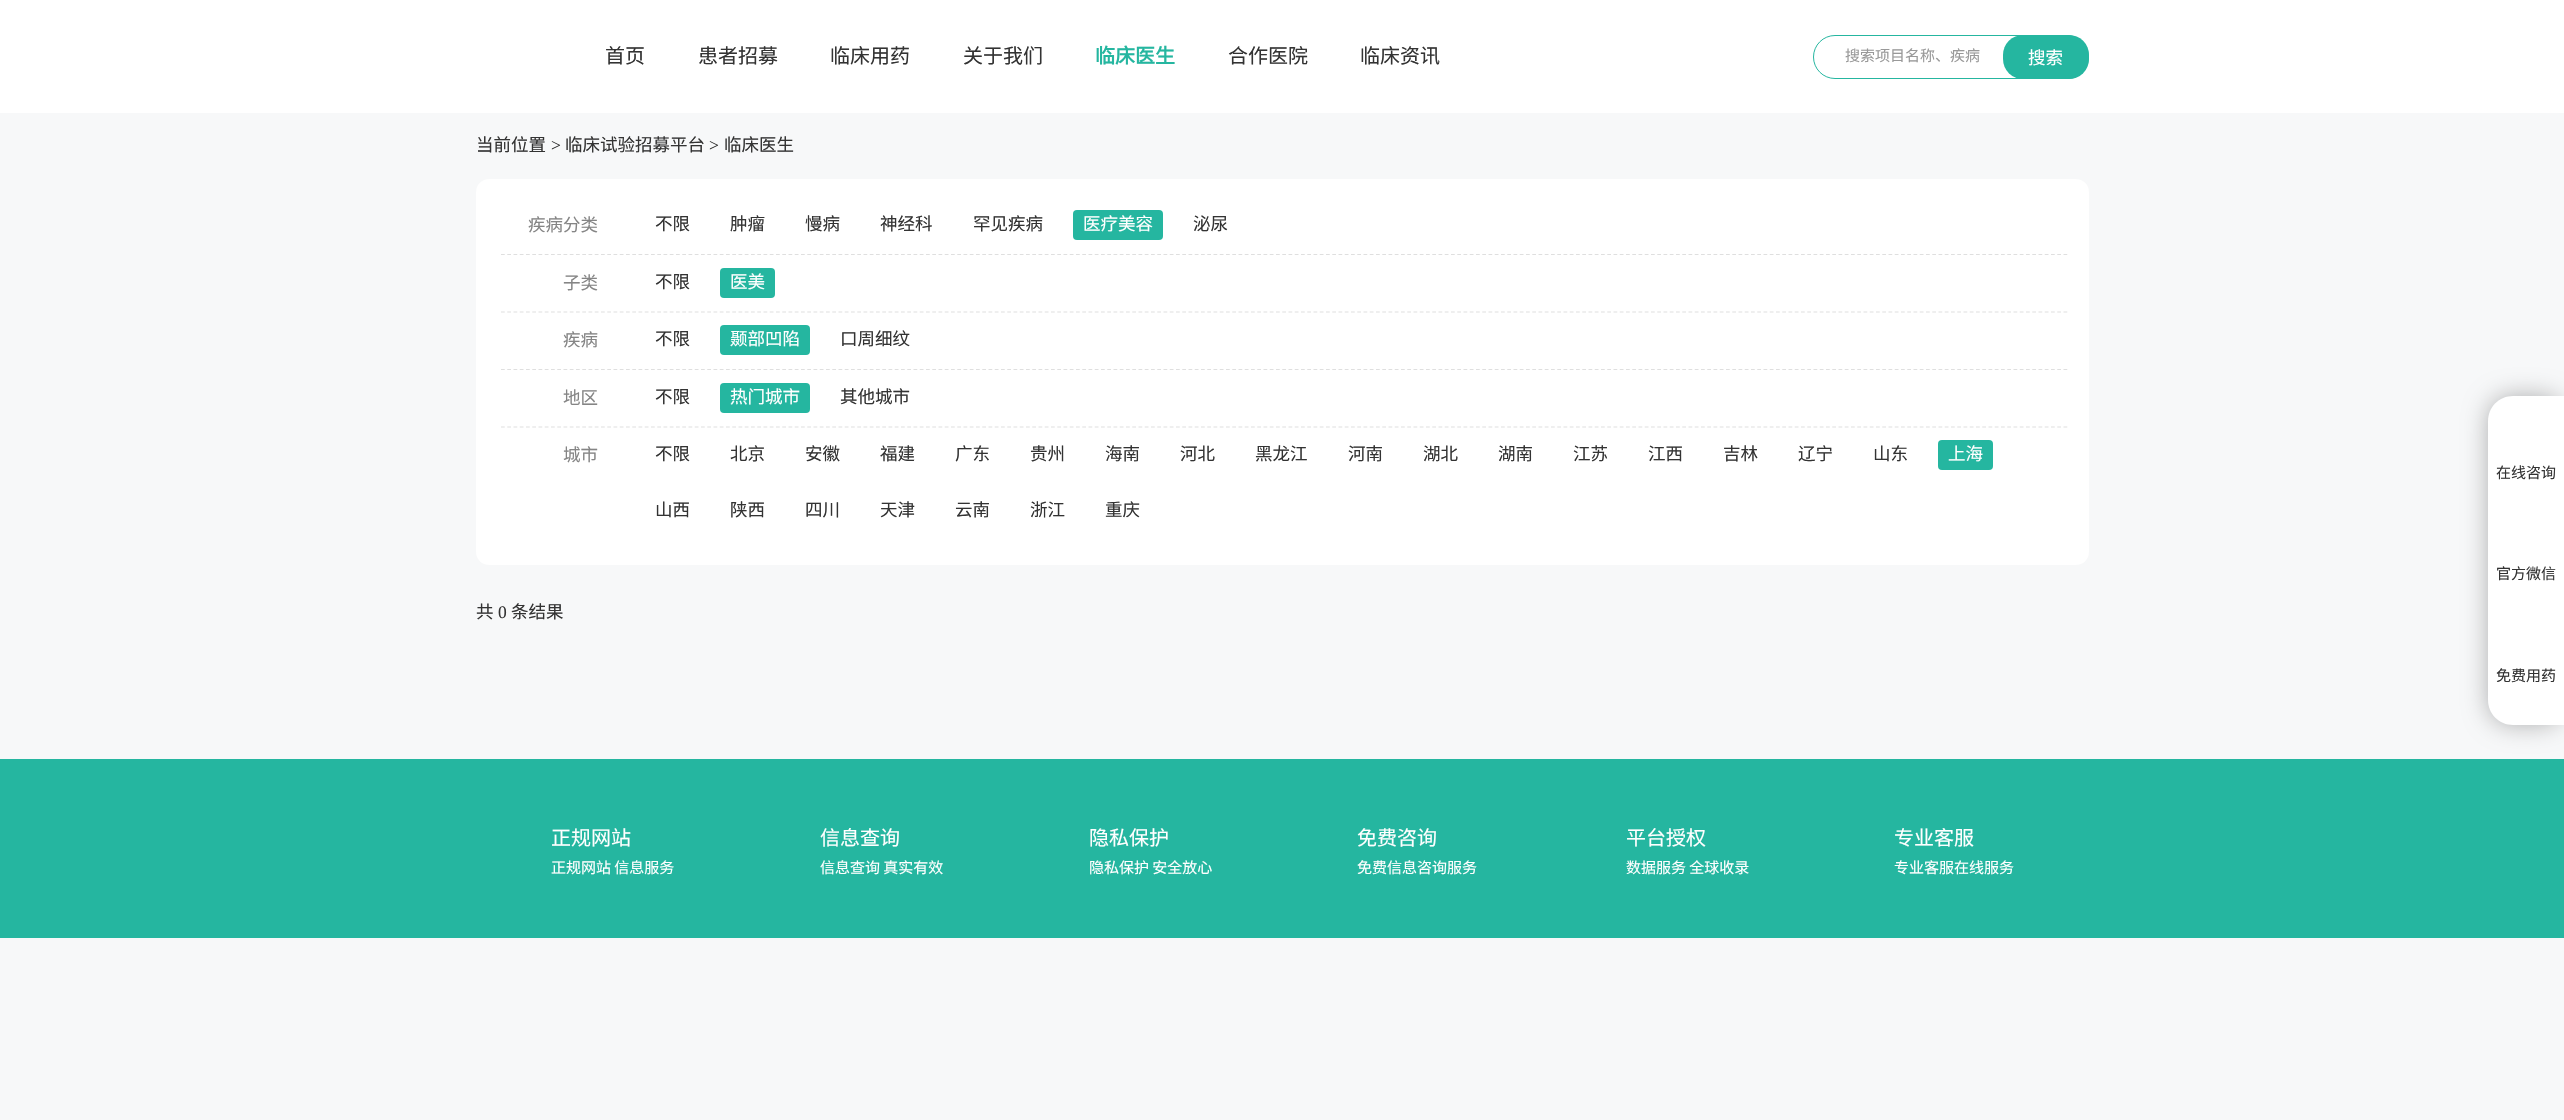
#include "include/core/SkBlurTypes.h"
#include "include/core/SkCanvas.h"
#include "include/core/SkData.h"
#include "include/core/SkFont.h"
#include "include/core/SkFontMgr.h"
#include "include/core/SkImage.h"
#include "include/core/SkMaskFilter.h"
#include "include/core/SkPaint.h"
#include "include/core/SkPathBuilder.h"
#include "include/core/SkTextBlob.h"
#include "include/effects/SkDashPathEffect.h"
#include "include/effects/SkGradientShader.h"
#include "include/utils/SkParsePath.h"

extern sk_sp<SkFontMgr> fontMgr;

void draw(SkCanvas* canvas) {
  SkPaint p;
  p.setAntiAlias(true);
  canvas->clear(SkColorSetRGB(247, 248, 249));
  p.setColor(SK_ColorWHITE);
  canvas->drawRect(SkRect::MakeLTRB(0, 0, 2564, 113), p);
  p.setStyle(SkPaint::kStroke_Style);
  p.setStrokeWidth(1);
  p.setColor(SkColorSetRGB(37, 182, 160));
  canvas->drawRoundRect(SkRect::MakeLTRB(1813.5f, 35.5f, 2088.5f, 78.5f), 21.5f, 21.5f, p);
  p.setStyle(SkPaint::kFill_Style);
  canvas->drawRoundRect(SkRect::MakeLTRB(2003, 35, 2089, 79), 20, 20, p);
  p.setColor(SK_ColorWHITE);
  canvas->drawRoundRect(SkRect::MakeLTRB(476, 179, 2089, 565), 13, 13, p);
  p.setStyle(SkPaint::kStroke_Style);
  p.setStrokeWidth(1.2f);
  p.setColor(SkColorSetRGB(223, 223, 223));
  p.setPathEffect(SkDashPathEffect::Make({{3.75f, 2.5f}}, 0));
  canvas->drawPath(SkPathBuilder().moveTo(501, 254.5f).lineTo(2067.5f, 254.5f).detach(), p);
  p.setPathEffect(nullptr);
  p.setStyle(SkPaint::kFill_Style);
  p.setColor(SkColorSetRGB(37, 182, 160));
  canvas->drawRoundRect(SkRect::MakeLTRB(1073, 210, 1163, 240), 4, 4, p);
  p.setStyle(SkPaint::kStroke_Style);
  p.setColor(SkColorSetRGB(223, 223, 223));
  p.setPathEffect(SkDashPathEffect::Make({{3.75f, 2.5f}}, 0));
  canvas->drawPath(SkPathBuilder().moveTo(501, 312).lineTo(2067.5f, 312).detach(), p);
  p.setPathEffect(nullptr);
  p.setStyle(SkPaint::kFill_Style);
  p.setColor(SkColorSetRGB(37, 182, 160));
  canvas->drawRoundRect(SkRect::MakeLTRB(720, 268, 775, 298), 4, 4, p);
  p.setStyle(SkPaint::kStroke_Style);
  p.setColor(SkColorSetRGB(223, 223, 223));
  p.setPathEffect(SkDashPathEffect::Make({{3.75f, 2.5f}}, 0));
  canvas->drawPath(SkPathBuilder().moveTo(501, 369.5f).lineTo(2067.5f, 369.5f).detach(), p);
  p.setPathEffect(nullptr);
  p.setStyle(SkPaint::kFill_Style);
  p.setColor(SkColorSetRGB(37, 182, 160));
  canvas->drawRoundRect(SkRect::MakeLTRB(720, 325, 810, 355), 4, 4, p);
  p.setStyle(SkPaint::kStroke_Style);
  p.setColor(SkColorSetRGB(223, 223, 223));
  p.setPathEffect(SkDashPathEffect::Make({{3.75f, 2.5f}}, 0));
  canvas->drawPath(SkPathBuilder().moveTo(501, 427).lineTo(2067.5f, 427).detach(), p);
  p.setPathEffect(nullptr);
  p.setStyle(SkPaint::kFill_Style);
  p.setColor(SkColorSetRGB(37, 182, 160));
  canvas->drawRoundRect(SkRect::MakeLTRB(720, 383, 810, 413), 4, 4, p);
  canvas->drawRoundRect(SkRect::MakeLTRB(1938, 440, 1993, 470), 4, 4, p);
  canvas->drawRect(SkRect::MakeLTRB(0, 759, 2564, 938), p);
  p.setColor(SkColorSetARGB(77, 0, 0, 0));
  p.setMaskFilter(SkMaskFilter::MakeBlur(kNormal_SkBlurStyle, 12.5f));
  canvas->drawRoundRect(SkRect::MakeLTRB(2488, 396, 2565, 725), 25, 25, p);
  p.setMaskFilter(nullptr);
  p.setColor(SK_ColorWHITE);
  canvas->drawPath(SkPathBuilder().moveTo(2513, 396).lineTo(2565, 396).lineTo(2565, 725).lineTo(2513, 725).cubicTo(2499, 725, 2488, 714, 2488, 700).lineTo(2488, 421).cubicTo(2488, 407, 2499, 396, 2513, 396).close().detach(), p);
  SkFont font1(fontMgr->matchFamilyStyle("Noto Sans CJK SC", SkFontStyle::Normal()), 20);
  font1.setSubpixel(true);
  p.setColor(SkColorSetRGB(51, 51, 51));
  canvas->drawString("首页", 605, 63, font1, p);
  canvas->drawString("患者招募", 698, 63, font1, p);
  canvas->drawString("临床用药", 830, 63, font1, p);
  canvas->drawString("关于我们", 963, 63, font1, p);
  SkFont font2(fontMgr->matchFamilyStyle("Noto Sans CJK SC", SkFontStyle::Bold()), 20);
  font2.setSubpixel(true);
  p.setColor(SkColorSetRGB(37, 182, 160));
  canvas->drawString("临床医生", 1095, 63, font2, p);
  p.setColor(SkColorSetRGB(51, 51, 51));
  canvas->drawString("合作医院", 1228, 63, font1, p);
  canvas->drawString("临床资讯", 1360, 63, font1, p);
  SkFont font3(fontMgr->matchFamilyStyle("Noto Sans CJK SC", SkFontStyle::Normal()), 15);
  font3.setSubpixel(true);
  p.setColor(SkColorSetRGB(153, 153, 153));
  canvas->drawString("搜索项目名称、疾病", 1845, 61, font3, p);
  SkFont font4(fontMgr->matchFamilyStyle("Noto Sans CJK SC", SkFontStyle::Normal()), 17.5f);
  font4.setSubpixel(true);
  p.setColor(SK_ColorWHITE);
  canvas->drawString("搜索", 2028, 64, font4, p);
  p.setColor(SkColorSetRGB(51, 51, 51));
  canvas->drawString("当前位置", 476, 151, font4, p);
  SkFont font5(fontMgr->matchFamilyStyle("Liberation Serif", SkFontStyle::Normal()), 17.5f);
  font5.setSubpixel(true);
  canvas->drawString(">", 551, 151, font5, p);
  canvas->drawString("临床试验招募平台", 565, 151, font4, p);
  canvas->drawString(">", 709, 151, font5, p);
  canvas->drawString("临床医生", 724, 151, font4, p);
  p.setColor(SkColorSetRGB(133, 133, 133));
  canvas->drawString("疾病分类", 528, 231, font4, p);
  p.setColor(SkColorSetRGB(51, 51, 51));
  canvas->drawString("不限", 655, 230, font4, p);
  canvas->drawString("肿瘤", 730, 230, font4, p);
  canvas->drawString("慢病", 805, 230, font4, p);
  canvas->drawString("神经科", 880, 230, font4, p);
  canvas->drawString("罕见疾病", 973, 230, font4, p);
  p.setColor(SK_ColorWHITE);
  canvas->drawString("医疗美容", 1083, 230, font4, p);
  p.setColor(SkColorSetRGB(51, 51, 51));
  canvas->drawString("泌尿", 1193, 230, font4, p);
  p.setColor(SkColorSetRGB(133, 133, 133));
  canvas->drawString("子类", 563, 289, font4, p);
  p.setColor(SkColorSetRGB(51, 51, 51));
  canvas->drawString("不限", 655, 288, font4, p);
  p.setColor(SK_ColorWHITE);
  canvas->drawString("医美", 730, 288, font4, p);
  p.setColor(SkColorSetRGB(133, 133, 133));
  canvas->drawString("疾病", 563, 346, font4, p);
  p.setColor(SkColorSetRGB(51, 51, 51));
  canvas->drawString("不限", 655, 345, font4, p);
  p.setColor(SK_ColorWHITE);
  canvas->drawString("颞部凹陷", 730, 345, font4, p);
  p.setColor(SkColorSetRGB(51, 51, 51));
  canvas->drawString("口周细纹", 840, 345, font4, p);
  p.setColor(SkColorSetRGB(133, 133, 133));
  canvas->drawString("地区", 563, 404, font4, p);
  p.setColor(SkColorSetRGB(51, 51, 51));
  canvas->drawString("不限", 655, 403, font4, p);
  p.setColor(SK_ColorWHITE);
  canvas->drawString("热门城市", 730, 403, font4, p);
  p.setColor(SkColorSetRGB(51, 51, 51));
  canvas->drawString("其他城市", 840, 403, font4, p);
  p.setColor(SkColorSetRGB(133, 133, 133));
  canvas->drawString("城市", 563, 461, font4, p);
  p.setColor(SkColorSetRGB(51, 51, 51));
  canvas->drawString("不限", 655, 460, font4, p);
  canvas->drawString("北京", 730, 460, font4, p);
  canvas->drawString("安徽", 805, 460, font4, p);
  canvas->drawString("福建", 880, 460, font4, p);
  canvas->drawString("广东", 955, 460, font4, p);
  canvas->drawString("贵州", 1030, 460, font4, p);
  canvas->drawString("海南", 1105, 460, font4, p);
  canvas->drawString("河北", 1180, 460, font4, p);
  canvas->drawString("黑龙江", 1255, 460, font4, p);
  canvas->drawString("河南", 1348, 460, font4, p);
  canvas->drawString("湖北", 1423, 460, font4, p);
  canvas->drawString("湖南", 1498, 460, font4, p);
  canvas->drawString("江苏", 1573, 460, font4, p);
  canvas->drawString("江西", 1648, 460, font4, p);
  canvas->drawString("吉林", 1723, 460, font4, p);
  canvas->drawString("辽宁", 1798, 460, font4, p);
  canvas->drawString("山东", 1873, 460, font4, p);
  p.setColor(SK_ColorWHITE);
  canvas->drawString("上海", 1948, 460, font4, p);
  p.setColor(SkColorSetRGB(51, 51, 51));
  canvas->drawString("山西", 655, 516, font4, p);
  canvas->drawString("陕西", 730, 516, font4, p);
  canvas->drawString("四川", 805, 516, font4, p);
  canvas->drawString("天津", 880, 516, font4, p);
  canvas->drawString("云南", 955, 516, font4, p);
  canvas->drawString("浙江", 1030, 516, font4, p);
  canvas->drawString("重庆", 1105, 516, font4, p);
  canvas->drawString("共", 476, 618, font4, p);
  canvas->drawString("0", 498, 618, font5, p);
  canvas->drawString("条结果", 511, 618, font4, p);
  canvas->drawString("在线咨询", 2496, 478, font3, p);
  canvas->drawString("官方微信", 2496, 579, font3, p);
  canvas->drawString("免费用药", 2496, 681, font3, p);
  p.setColor(SK_ColorWHITE);
  canvas->drawString("正规网站", 551, 845, font1, p);
  canvas->drawString("正规网站 信息服务", 551, 873, font3, p);
  canvas->drawString("信息查询", 820, 845, font1, p);
  canvas->drawString("信息查询 真实有效", 820, 873, font3, p);
  canvas->drawString("隐私保护", 1089, 845, font1, p);
  canvas->drawString("隐私保护 安全放心", 1089, 873, font3, p);
  canvas->drawString("免费咨询", 1357, 845, font1, p);
  canvas->drawString("免费信息咨询服务", 1357, 873, font3, p);
  canvas->drawString("平台授权", 1626, 845, font1, p);
  canvas->drawString("数据服务 全球收录", 1626, 873, font3, p);
  canvas->drawString("专业客服", 1894, 845, font1, p);
  canvas->drawString("专业客服在线服务", 1894, 873, font3, p);
}
